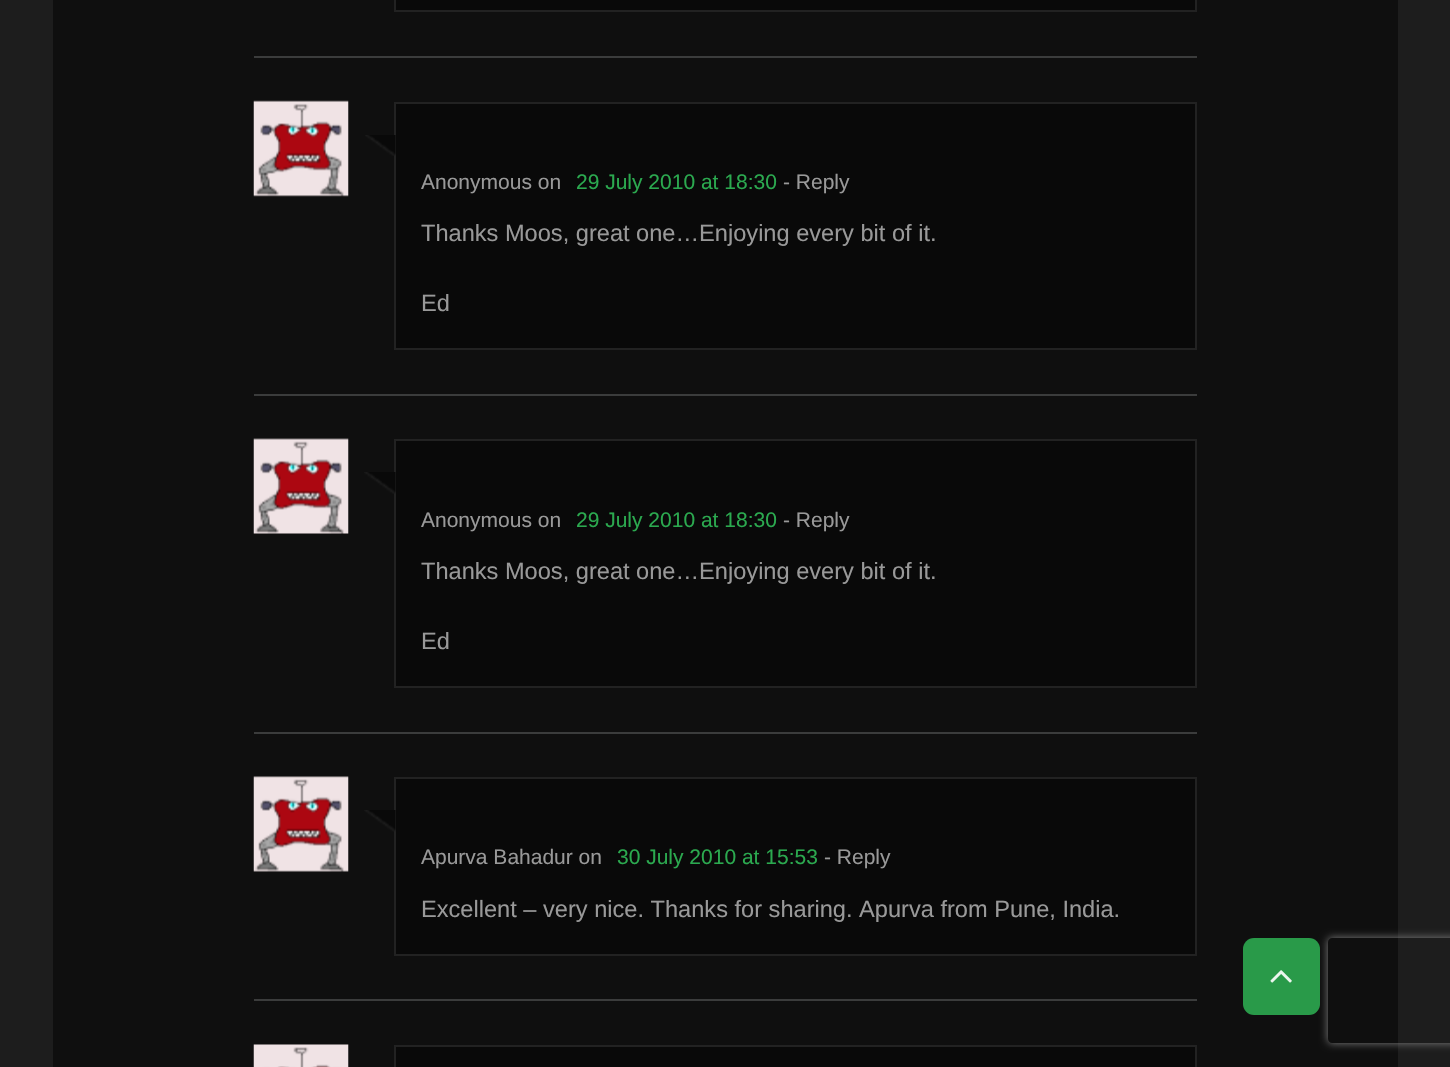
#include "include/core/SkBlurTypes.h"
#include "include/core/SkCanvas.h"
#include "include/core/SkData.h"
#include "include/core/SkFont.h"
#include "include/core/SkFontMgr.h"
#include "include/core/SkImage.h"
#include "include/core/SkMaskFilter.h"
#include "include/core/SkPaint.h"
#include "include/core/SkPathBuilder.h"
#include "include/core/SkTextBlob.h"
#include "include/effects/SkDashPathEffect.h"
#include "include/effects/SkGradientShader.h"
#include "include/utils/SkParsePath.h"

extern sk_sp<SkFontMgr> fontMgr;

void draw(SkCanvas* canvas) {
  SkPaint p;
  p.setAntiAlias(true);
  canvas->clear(SkColorSetRGB(29, 29, 29));
  p.setColor(SkColorSetRGB(15, 15, 15));
  canvas->drawRect(SkRect::MakeLTRB(53, 0, 1398, 1067), p);
  p.setColor(SkColorSetRGB(59, 60, 60));
  canvas->drawRect(SkRect::MakeLTRB(254, 56, 1197, 58), p);
  p.setColor(SkColorSetRGB(9, 9, 9));
  canvas->drawRect(SkRect::MakeLTRB(395, -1, 1196, 11), p);
  p.setStyle(SkPaint::kStroke_Style);
  p.setStrokeWidth(2);
  p.setColor(SkColorSetRGB(34, 34, 34));
  canvas->drawRect(SkRect::MakeLTRB(395, -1, 1196, 11), p);
  p.setStyle(SkPaint::kFill_Style);
  p.setColor(SkColorSetRGB(59, 60, 60));
  canvas->drawRect(SkRect::MakeLTRB(254, 394, 1197, 396), p);
  canvas->drawImageRect(SkImages::DeferredFromEncodedData(SkData::MakeFromFileName("images/1.png")), SkRect::MakeLTRB(253, 100, 349, 197), SkSamplingOptions());
  p.setColor(SkColorSetRGB(9, 9, 9));
  canvas->drawRect(SkRect::MakeLTRB(395, 103, 1196, 349), p);
  p.setStyle(SkPaint::kStroke_Style);
  p.setColor(SkColorSetRGB(34, 34, 34));
  canvas->drawRect(SkRect::MakeLTRB(395, 103, 1196, 349), p);
  canvas->drawImageRect(SkImages::DeferredFromEncodedData(SkData::MakeFromFileName("images/2.png")), SkRect::MakeLTRB(365, 135, 396, 156), SkSamplingOptions());
  p.setStyle(SkPaint::kFill_Style);
  p.setColor(SkColorSetRGB(59, 60, 60));
  canvas->drawRect(SkRect::MakeLTRB(254, 732, 1197, 734), p);
  canvas->drawImageRect(SkImages::DeferredFromEncodedData(SkData::MakeFromFileName("images/3.png")), SkRect::MakeLTRB(253, 438, 349, 534), SkSamplingOptions());
  p.setColor(SkColorSetRGB(9, 9, 9));
  canvas->drawRect(SkRect::MakeLTRB(395, 440, 1196, 687), p);
  p.setStyle(SkPaint::kStroke_Style);
  p.setColor(SkColorSetRGB(34, 34, 34));
  canvas->drawRect(SkRect::MakeLTRB(395, 440, 1196, 687), p);
  canvas->drawImageRect(SkImages::DeferredFromEncodedData(SkData::MakeFromFileName("images/4.png")), SkRect::MakeLTRB(364, 472, 396, 494), SkSamplingOptions());
  p.setStyle(SkPaint::kFill_Style);
  p.setColor(SkColorSetRGB(59, 60, 60));
  canvas->drawRect(SkRect::MakeLTRB(254, 999, 1197, 1001), p);
  canvas->drawImageRect(SkImages::DeferredFromEncodedData(SkData::MakeFromFileName("images/5.png")), SkRect::MakeLTRB(253, 776, 349, 872), SkSamplingOptions());
  p.setColor(SkColorSetRGB(9, 9, 9));
  canvas->drawRect(SkRect::MakeLTRB(395, 778, 1196, 955), p);
  p.setStyle(SkPaint::kStroke_Style);
  p.setColor(SkColorSetRGB(34, 34, 34));
  canvas->drawRect(SkRect::MakeLTRB(395, 778, 1196, 955), p);
  canvas->drawImageRect(SkImages::DeferredFromEncodedData(SkData::MakeFromFileName("images/6.png")), SkRect::MakeLTRB(364, 810, 396, 832), SkSamplingOptions());
  canvas->drawImageRect(SkImages::DeferredFromEncodedData(SkData::MakeFromFileName("images/7.png")), SkRect::MakeLTRB(253, 1044, 349, 1067), SkSamplingOptions());
  p.setStyle(SkPaint::kFill_Style);
  p.setColor(SkColorSetRGB(9, 9, 9));
  canvas->drawRect(SkRect::MakeLTRB(395, 1046, 1196, 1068), p);
  p.setStyle(SkPaint::kStroke_Style);
  p.setColor(SkColorSetRGB(34, 34, 34));
  canvas->drawRect(SkRect::MakeLTRB(395, 1046, 1196, 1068), p);
  canvas->save();
  canvas->clipPath(SkPathBuilder(SkPathFillType::kEvenOdd).moveTo(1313, 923).lineTo(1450, 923).lineTo(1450, 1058).lineTo(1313, 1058).close().moveTo(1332, 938).lineTo(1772, 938).cubicTo(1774, 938, 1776, 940, 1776, 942).lineTo(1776, 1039).cubicTo(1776, 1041, 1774, 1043, 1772, 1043).lineTo(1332, 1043).cubicTo(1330, 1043, 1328, 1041, 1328, 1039).lineTo(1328, 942).cubicTo(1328, 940, 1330, 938, 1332, 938).close().detach(), true);
  p.setStyle(SkPaint::kFill_Style);
  p.setColor(SkColorSetRGB(128, 128, 128));
  p.setMaskFilter(SkMaskFilter::MakeBlur(kNormal_SkBlurStyle, 4.5f));
  canvas->drawRoundRect(SkRect::MakeLTRB(1328, 938, 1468, 1043), 4, 4, p);
  p.setMaskFilter(nullptr);
  canvas->restore();
  p.setColor(SkColorSetARGB(230, 43, 169, 79));
  canvas->drawRoundRect(SkRect::MakeLTRB(1243, 938, 1320, 1015), 11, 11, p);
  canvas->drawImageRect(SkImages::DeferredFromEncodedData(SkData::MakeFromFileName("images/8.png")), SkRect::MakeLTRB(1270, 970, 1292, 983), SkSamplingOptions());
  SkFont font1(fontMgr->matchFamilyStyle("Liberation Sans", SkFontStyle::Normal()), 21);
  font1.setSubpixel(true);
  p.setColor(SkColorSetRGB(153, 153, 153));
  canvas->drawString("Anonymous on", 421, 189, font1, p);
  p.setColor(SkColorSetRGB(43, 169, 79));
  canvas->drawString("29 July 2010 at 18:30", 576, 189, font1, p);
  p.setColor(SkColorSetRGB(153, 153, 153));
  canvas->drawString("- Reply", 783, 189, font1, p);
  SkFont font2(fontMgr->matchFamilyStyle("Liberation Sans", SkFontStyle::Normal()), 23.6f);
  font2.setSubpixel(true);
  canvas->drawString("Thanks Moos, great one…Enjoying every bit of it.", 421, 241, font2, p);
  canvas->drawString("Ed", 421, 311, font2, p);
  canvas->drawString("Anonymous on", 421, 527, font1, p);
  p.setColor(SkColorSetRGB(43, 169, 79));
  canvas->drawString("29 July 2010 at 18:30", 576, 527, font1, p);
  p.setColor(SkColorSetRGB(153, 153, 153));
  canvas->drawString("- Reply", 783, 527, font1, p);
  canvas->drawString("Thanks Moos, great one…Enjoying every bit of it.", 421, 579, font2, p);
  canvas->drawString("Ed", 421, 649, font2, p);
  canvas->drawString("Apurva Bahadur on", 421, 864, font1, p);
  p.setColor(SkColorSetRGB(43, 169, 79));
  canvas->drawString("30 July 2010 at 15:53", 617, 864, font1, p);
  p.setColor(SkColorSetRGB(153, 153, 153));
  canvas->drawString("- Reply", 824, 864, font1, p);
  canvas->drawString("Excellent – very nice. Thanks for sharing. Apurva from Pune, India.", 421, 917, font2, p);
}
